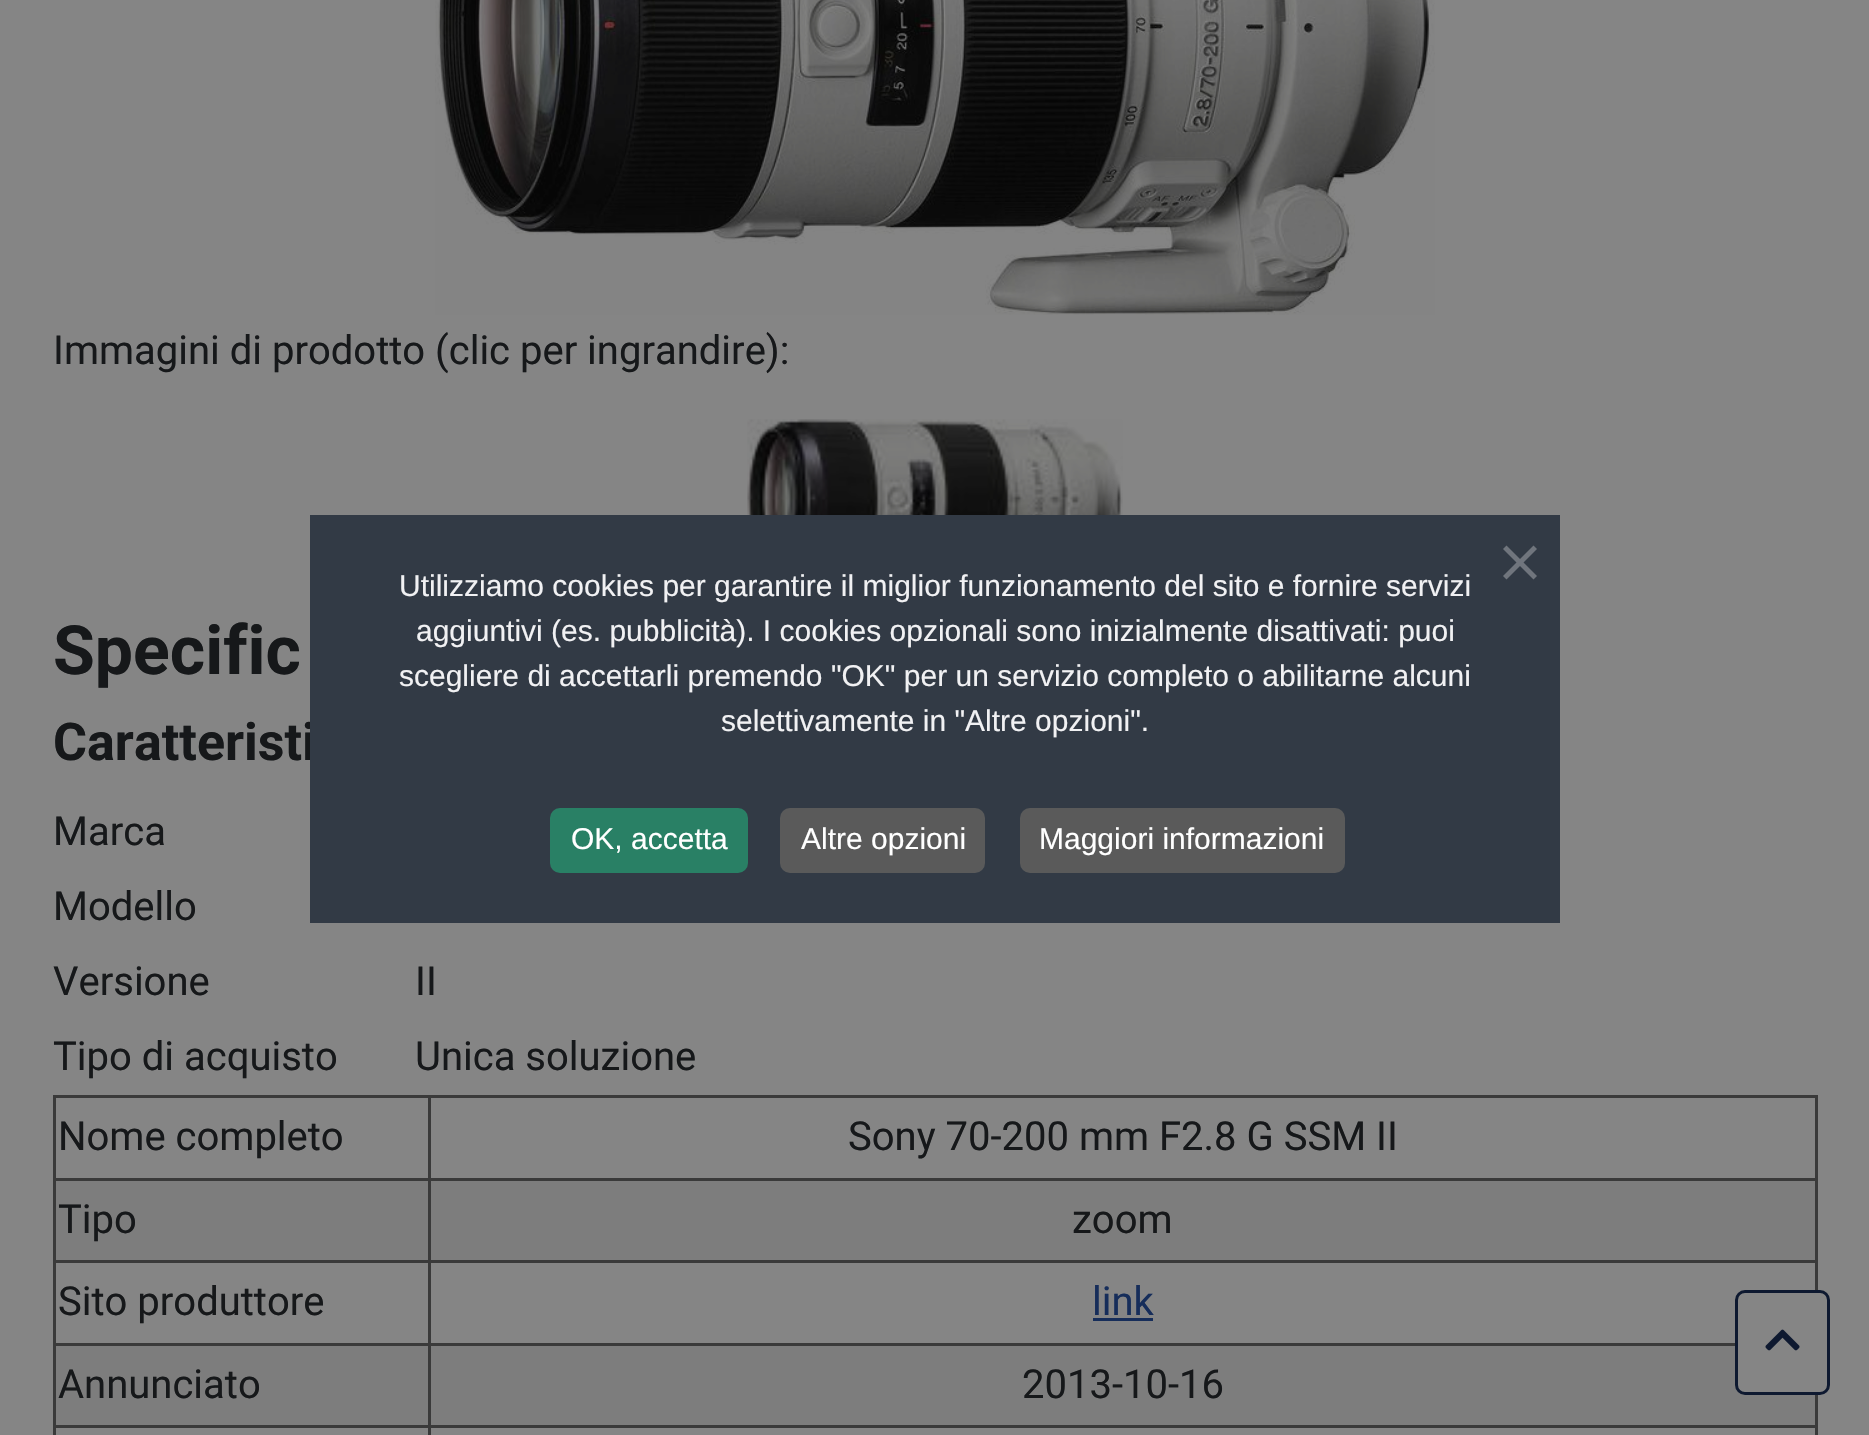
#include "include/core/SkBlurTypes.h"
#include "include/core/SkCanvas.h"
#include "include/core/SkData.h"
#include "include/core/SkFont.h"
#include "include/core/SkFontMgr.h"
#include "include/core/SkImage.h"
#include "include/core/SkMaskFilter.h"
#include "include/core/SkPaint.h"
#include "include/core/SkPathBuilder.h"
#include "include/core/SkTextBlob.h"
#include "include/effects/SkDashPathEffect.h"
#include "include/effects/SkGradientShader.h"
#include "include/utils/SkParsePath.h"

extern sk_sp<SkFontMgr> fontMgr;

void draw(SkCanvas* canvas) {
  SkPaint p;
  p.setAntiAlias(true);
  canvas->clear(SkColorSetRGB(133, 133, 133));
  canvas->drawImageRect(SkImages::DeferredFromEncodedData(SkData::MakeFromFileName("images/1.png")), SkRect::MakeLTRB(435, 0, 1435, 315), SkSamplingOptions());
  canvas->drawImageRect(SkImages::DeferredFromEncodedData(SkData::MakeFromFileName("images/2.png")), SkRect::MakeLTRB(747, 419, 1123, 515), SkSamplingOptions());
  p.setColor(SkColorSetRGB(58, 58, 58));
  canvas->drawRect(SkRect::MakeLTRB(428, 1095, 1818, 1098), p);
  canvas->drawRect(SkRect::MakeLTRB(428, 1178, 1818, 1181), p);
  p.setColor(SkColorSetRGB(125, 125, 125));
  canvas->drawRect(SkRect::MakeLTRB(56, 1181, 1815, 1260), p);
  p.setColor(SkColorSetRGB(58, 58, 58));
  canvas->drawRect(SkRect::MakeLTRB(428, 1260, 1818, 1263), p);
  canvas->drawRect(SkRect::MakeLTRB(428, 1343, 1735, 1346), p);
  p.setColor(SkColorSetRGB(125, 125, 125));
  canvas->drawRect(SkRect::MakeLTRB(56, 1346, 1815, 1425), p);
  p.setColor(SkColorSetRGB(58, 58, 58));
  canvas->drawRect(SkRect::MakeLTRB(428, 1425, 1818, 1428), p);
  canvas->drawRect(SkRect::MakeLTRB(428, 1425, 431, 1435), p);
  canvas->drawRect(SkRect::MakeLTRB(53, 1425, 430, 1428), p);
  canvas->drawRect(SkRect::MakeLTRB(428, 1343, 431, 1428), p);
  canvas->drawRect(SkRect::MakeLTRB(53, 1343, 430, 1346), p);
  canvas->drawRect(SkRect::MakeLTRB(428, 1260, 431, 1345), p);
  canvas->drawRect(SkRect::MakeLTRB(53, 1260, 430, 1263), p);
  canvas->drawRect(SkRect::MakeLTRB(428, 1178, 431, 1263), p);
  canvas->drawRect(SkRect::MakeLTRB(53, 1178, 430, 1181), p);
  canvas->drawRect(SkRect::MakeLTRB(428, 1095, 431, 1180), p);
  canvas->drawRect(SkRect::MakeLTRB(53, 1095, 430, 1098), p);
  canvas->drawRect(SkRect::MakeLTRB(53, 1425, 56, 1435), p);
  canvas->drawRect(SkRect::MakeLTRB(53, 1343, 56, 1428), p);
  canvas->drawRect(SkRect::MakeLTRB(53, 1260, 56, 1345), p);
  canvas->drawRect(SkRect::MakeLTRB(53, 1178, 56, 1263), p);
  canvas->drawRect(SkRect::MakeLTRB(53, 1095, 56, 1180), p);
  canvas->drawRect(SkRect::MakeLTRB(1815, 1260, 1818, 1290), p);
  canvas->drawRect(SkRect::MakeLTRB(1815, 1178, 1818, 1263), p);
  canvas->drawRect(SkRect::MakeLTRB(1815, 1095, 1818, 1180), p);
  p.setColor(SkColorSetRGB(22, 45, 90));
  canvas->drawRect(SkRect::MakeLTRB(1093, 1318, 1153, 1321), p);
  p.setColor(SkColorSetRGB(58, 58, 58));
  canvas->drawRect(SkRect::MakeLTRB(1815, 1395, 1818, 1435), p);
  p.setColor(SkColorSetRGB(133, 133, 133));
  canvas->drawRoundRect(SkRect::MakeLTRB(1736.5f, 1291.5f, 1828.5f, 1393.5f), 8.5f, 8.5f, p);
  p.setStyle(SkPaint::kStroke_Style);
  p.setStrokeWidth(3);
  p.setColor(SkColorSetRGB(14, 25, 48));
  canvas->drawRoundRect(SkRect::MakeLTRB(1736.5f, 1291.5f, 1828.5f, 1393.5f), 8.5f, 8.5f, p);
  canvas->drawImageRect(SkImages::DeferredFromEncodedData(SkData::MakeFromFileName("images/3.png")), SkRect::MakeLTRB(1765, 1329, 1800, 1351), SkSamplingOptions());
  SkFont font1(fontMgr->matchFamilyStyle("Roboto", SkFontStyle::Normal()), 40);
  font1.setSubpixel(true);
  p.setStyle(SkPaint::kFill_Style);
  p.setColor(SkColorSetRGB(22, 24, 26));
  canvas->drawString("Immagini di prodotto (clic per ingrandire):", 53, 364, font1, p);
  SkFont font2(fontMgr->matchFamilyStyle("Roboto", SkFontStyle::Bold()), 68);
  font2.setSubpixel(true);
  canvas->drawString("Specific", 53, 674, font2, p);
  SkFont font3(fontMgr->matchFamilyStyle("Roboto", SkFontStyle::Bold()), 52);
  font3.setSubpixel(true);
  canvas->drawString("Caratteristi", 53, 760, font3, p);
  canvas->drawString("Marca", 53, 845, font1, p);
  canvas->drawString("Modello", 53, 920, font1, p);
  canvas->drawString("Versione", 53, 995, font1, p);
  canvas->drawString("II", 415, 995, font1, p);
  canvas->drawString("Tipo di acquisto", 53, 1070, font1, p);
  canvas->drawString("Unica soluzione", 415, 1070, font1, p);
  canvas->drawString("Nome completo", 58, 1150, font1, p);
  canvas->drawString("Sony 70-200 mm F2.8 G SSM II", 848, 1150, font1, p);
  canvas->drawString("Tipo", 58, 1233, font1, p);
  canvas->drawString("zoom", 1072, 1233, font1, p);
  canvas->drawString("Sito produttore", 58, 1315, font1, p);
  p.setColor(SkColorSetRGB(22, 45, 90));
  canvas->drawString("link", 1092, 1315, font1, p);
  p.setColor(SkColorSetRGB(22, 24, 26));
  canvas->drawString("Annunciato", 58, 1398, font1, p);
  canvas->drawString("2013-10-16", 1022, 1398, font1, p);
  p.setColor(SkColorSetRGB(50, 58, 69));
  canvas->drawRect(SkRect::MakeLTRB(310, 515, 1560, 923), p);
  p.setColor(SkColorSetRGB(112, 117, 125));
  canvas->drawPath(SkPathBuilder().moveTo(1533.5f, 545.5f).lineTo(1537, 549).lineTo(1506.5f, 579.5f).lineTo(1503, 576).close().detach(), p);
  canvas->drawPath(SkPathBuilder().moveTo(1503, 549).lineTo(1506.5f, 545.5f).lineTo(1537, 576).lineTo(1533.5f, 579.5f).close().detach(), p);
  SkFont font4(fontMgr->matchFamilyStyle("Liberation Sans", SkFontStyle::Normal()), 30);
  font4.setSubpixel(true);
  p.setColor(SkColorSetRGB(241, 241, 243));
  canvas->drawString("Utilizziamo cookies per garantire il miglior funzionamento del sito e fornire servizi", 399, 596, font4, p);
  canvas->drawString("aggiuntivi (es. pubblicità). I cookies opzionali sono inizialmente disattivati: puoi", 416, 641, font4, p);
  canvas->drawString("scegliere di accettarli premendo \"OK\" per un servizio completo o abilitarne alcuni", 399, 686, font4, p);
  canvas->drawString("selettivamente in \"Altre opzioni\".", 721, 731, font4, p);
  p.setColor(SkColorSetRGB(41, 128, 101));
  canvas->drawRoundRect(SkRect::MakeLTRB(550, 808, 748, 873), 10, 10, p);
  p.setColor(SK_ColorWHITE);
  canvas->drawString("OK, accetta", 571, 849, font4, p);
  p.setColor(SkColorSetRGB(90, 90, 90));
  canvas->drawRoundRect(SkRect::MakeLTRB(780, 808, 985, 873), 10, 10, p);
  p.setColor(SK_ColorWHITE);
  canvas->drawString("Altre opzioni", 801, 849, font4, p);
  p.setColor(SkColorSetRGB(90, 90, 90));
  canvas->drawRoundRect(SkRect::MakeLTRB(1020, 808, 1345, 873), 10, 10, p);
  p.setColor(SK_ColorWHITE);
  canvas->drawString("Maggiori informazioni", 1039, 849, font4, p);
}
